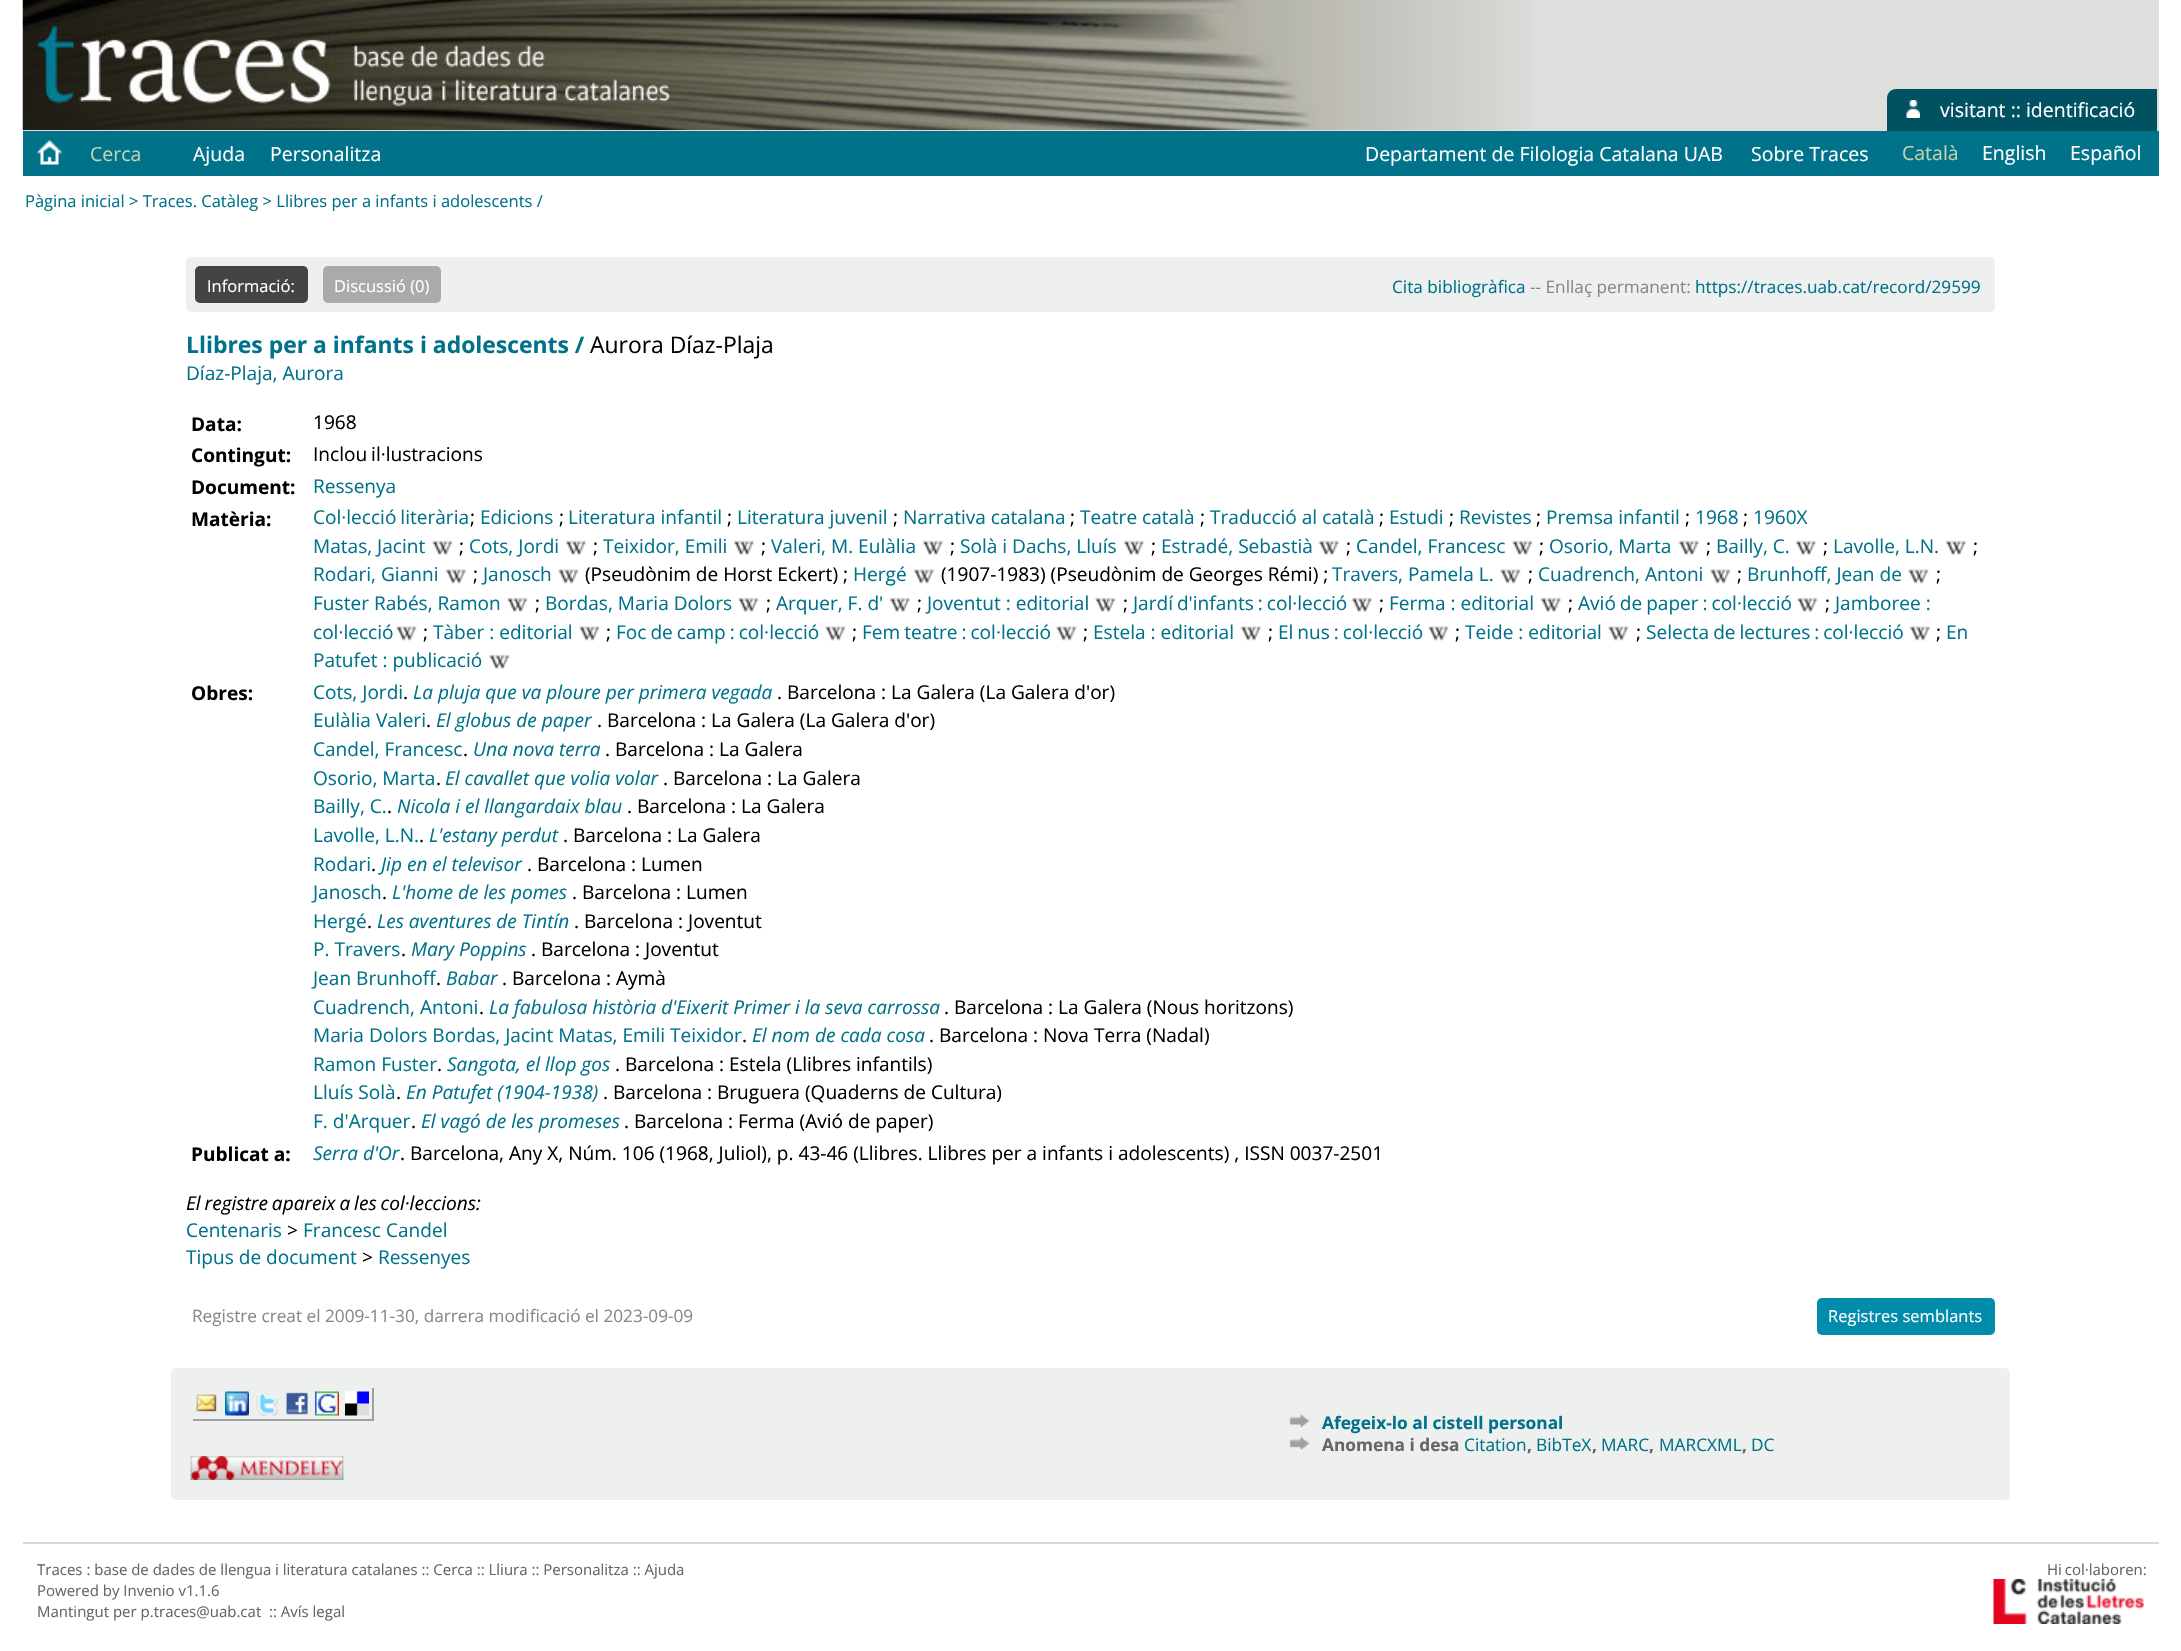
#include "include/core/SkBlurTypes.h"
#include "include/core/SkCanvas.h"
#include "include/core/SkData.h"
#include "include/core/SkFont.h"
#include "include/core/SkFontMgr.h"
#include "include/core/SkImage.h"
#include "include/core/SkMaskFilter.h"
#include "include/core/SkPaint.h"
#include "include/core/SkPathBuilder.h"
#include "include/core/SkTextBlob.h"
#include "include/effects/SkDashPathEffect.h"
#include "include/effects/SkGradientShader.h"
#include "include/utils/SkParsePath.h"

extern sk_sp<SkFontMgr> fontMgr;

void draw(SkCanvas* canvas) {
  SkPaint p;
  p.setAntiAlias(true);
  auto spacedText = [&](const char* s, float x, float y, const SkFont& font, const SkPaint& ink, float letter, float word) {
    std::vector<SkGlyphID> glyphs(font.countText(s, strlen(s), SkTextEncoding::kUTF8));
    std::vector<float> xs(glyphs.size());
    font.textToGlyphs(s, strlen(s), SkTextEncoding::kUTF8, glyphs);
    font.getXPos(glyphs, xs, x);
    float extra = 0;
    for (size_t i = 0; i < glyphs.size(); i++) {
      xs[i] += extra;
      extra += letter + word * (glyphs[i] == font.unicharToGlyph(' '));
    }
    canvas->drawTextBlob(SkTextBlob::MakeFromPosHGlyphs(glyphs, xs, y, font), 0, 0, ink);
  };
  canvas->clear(SK_ColorWHITE);
  p.setColor(SkColorSetRGB(222, 222, 221));
  canvas->drawRect(SkRect::MakeLTRB(23, 0, 2159, 131), p);
  canvas->drawImageRect(SkImages::DeferredFromEncodedData(SkData::MakeFromFileName("images/1.png")), SkRect::MakeLTRB(22, 0, 1532, 130), SkSamplingOptions());
  p.setColor(SkColorSetRGB(0, 82, 99));
  canvas->drawPath(SkPathBuilder().moveTo(1896, 89).lineTo(2157, 89).lineTo(2157, 131).lineTo(1887, 131).lineTo(1887, 98).cubicTo(1887, 93, 1891, 89, 1896, 89).close().detach(), p);
  canvas->drawImageRect(SkImages::DeferredFromEncodedData(SkData::MakeFromFileName("images/2.png")), SkRect::MakeLTRB(1906, 100, 1920, 118), SkSamplingOptions());
  p.setColor(SkColorSetRGB(0, 114, 138));
  canvas->drawRect(SkRect::MakeLTRB(23, 131, 2159, 176), p);
  canvas->drawImageRect(SkImages::DeferredFromEncodedData(SkData::MakeFromFileName("images/3.png")), SkRect::MakeLTRB(37, 140, 62, 165), SkSamplingOptions());
  canvas->drawImageRect(SkImages::DeferredFromEncodedData(SkData::MakeFromFileName("images/4.png")), SkRect::MakeLTRB(432, 540, 453, 555), SkSamplingOptions());
  canvas->drawImageRect(SkImages::DeferredFromEncodedData(SkData::MakeFromFileName("images/5.png")), SkRect::MakeLTRB(565, 540, 587, 555), SkSamplingOptions());
  canvas->drawImageRect(SkImages::DeferredFromEncodedData(SkData::MakeFromFileName("images/5.png")), SkRect::MakeLTRB(733, 540, 755, 555), SkSamplingOptions());
  canvas->drawImageRect(SkImages::DeferredFromEncodedData(SkData::MakeFromFileName("images/6.png")), SkRect::MakeLTRB(922, 540, 944, 555), SkSamplingOptions());
  canvas->drawImageRect(SkImages::DeferredFromEncodedData(SkData::MakeFromFileName("images/5.png")), SkRect::MakeLTRB(1123, 540, 1145, 555), SkSamplingOptions());
  canvas->drawImageRect(SkImages::DeferredFromEncodedData(SkData::MakeFromFileName("images/6.png")), SkRect::MakeLTRB(1318, 540, 1340, 555), SkSamplingOptions());
  canvas->drawImageRect(SkImages::DeferredFromEncodedData(SkData::MakeFromFileName("images/4.png")), SkRect::MakeLTRB(1512, 540, 1533, 555), SkSamplingOptions());
  canvas->drawImageRect(SkImages::DeferredFromEncodedData(SkData::MakeFromFileName("images/6.png")), SkRect::MakeLTRB(1678, 540, 1700, 555), SkSamplingOptions());
  canvas->drawImageRect(SkImages::DeferredFromEncodedData(SkData::MakeFromFileName("images/7.png")), SkRect::MakeLTRB(1795, 540, 1817, 555), SkSamplingOptions());
  canvas->drawImageRect(SkImages::DeferredFromEncodedData(SkData::MakeFromFileName("images/5.png")), SkRect::MakeLTRB(1945, 540, 1967, 555), SkSamplingOptions());
  canvas->drawImageRect(SkImages::DeferredFromEncodedData(SkData::MakeFromFileName("images/8.png")), SkRect::MakeLTRB(445, 569, 467, 584), SkSamplingOptions());
  canvas->drawImageRect(SkImages::DeferredFromEncodedData(SkData::MakeFromFileName("images/9.png")), SkRect::MakeLTRB(558, 569, 579, 584), SkSamplingOptions());
  canvas->drawImageRect(SkImages::DeferredFromEncodedData(SkData::MakeFromFileName("images/10.png")), SkRect::MakeLTRB(913, 569, 935, 584), SkSamplingOptions());
  canvas->drawImageRect(SkImages::DeferredFromEncodedData(SkData::MakeFromFileName("images/9.png")), SkRect::MakeLTRB(1500, 569, 1521, 584), SkSamplingOptions());
  canvas->drawImageRect(SkImages::DeferredFromEncodedData(SkData::MakeFromFileName("images/11.png")), SkRect::MakeLTRB(1710, 569, 1731, 584), SkSamplingOptions());
  canvas->drawImageRect(SkImages::DeferredFromEncodedData(SkData::MakeFromFileName("images/9.png")), SkRect::MakeLTRB(1908, 569, 1929, 584), SkSamplingOptions());
  canvas->drawImageRect(SkImages::DeferredFromEncodedData(SkData::MakeFromFileName("images/12.png")), SkRect::MakeLTRB(507, 597, 528, 612), SkSamplingOptions());
  canvas->drawImageRect(SkImages::DeferredFromEncodedData(SkData::MakeFromFileName("images/4.png")), SkRect::MakeLTRB(738, 597, 759, 612), SkSamplingOptions());
  canvas->drawImageRect(SkImages::DeferredFromEncodedData(SkData::MakeFromFileName("images/6.png")), SkRect::MakeLTRB(889, 597, 911, 612), SkSamplingOptions());
  canvas->drawImageRect(SkImages::DeferredFromEncodedData(SkData::MakeFromFileName("images/12.png")), SkRect::MakeLTRB(1095, 597, 1116, 612), SkSamplingOptions());
  canvas->drawImageRect(SkImages::DeferredFromEncodedData(SkData::MakeFromFileName("images/5.png")), SkRect::MakeLTRB(1351, 597, 1373, 612), SkSamplingOptions());
  canvas->drawImageRect(SkImages::DeferredFromEncodedData(SkData::MakeFromFileName("images/6.png")), SkRect::MakeLTRB(1540, 597, 1562, 612), SkSamplingOptions());
  canvas->drawImageRect(SkImages::DeferredFromEncodedData(SkData::MakeFromFileName("images/12.png")), SkRect::MakeLTRB(1797, 597, 1818, 612), SkSamplingOptions());
  canvas->drawImageRect(SkImages::DeferredFromEncodedData(SkData::MakeFromFileName("images/9.png")), SkRect::MakeLTRB(396, 626, 417, 641), SkSamplingOptions());
  canvas->drawImageRect(SkImages::DeferredFromEncodedData(SkData::MakeFromFileName("images/9.png")), SkRect::MakeLTRB(579, 626, 600, 641), SkSamplingOptions());
  canvas->drawImageRect(SkImages::DeferredFromEncodedData(SkData::MakeFromFileName("images/11.png")), SkRect::MakeLTRB(825, 626, 846, 641), SkSamplingOptions());
  canvas->drawImageRect(SkImages::DeferredFromEncodedData(SkData::MakeFromFileName("images/9.png")), SkRect::MakeLTRB(1056, 626, 1077, 641), SkSamplingOptions());
  canvas->drawImageRect(SkImages::DeferredFromEncodedData(SkData::MakeFromFileName("images/8.png")), SkRect::MakeLTRB(1240, 626, 1262, 641), SkSamplingOptions());
  canvas->drawImageRect(SkImages::DeferredFromEncodedData(SkData::MakeFromFileName("images/9.png")), SkRect::MakeLTRB(1428, 626, 1449, 641), SkSamplingOptions());
  canvas->drawImageRect(SkImages::DeferredFromEncodedData(SkData::MakeFromFileName("images/11.png")), SkRect::MakeLTRB(1608, 626, 1629, 641), SkSamplingOptions());
  canvas->drawImageRect(SkImages::DeferredFromEncodedData(SkData::MakeFromFileName("images/8.png")), SkRect::MakeLTRB(1909, 626, 1931, 641), SkSamplingOptions());
  canvas->drawImageRect(SkImages::DeferredFromEncodedData(SkData::MakeFromFileName("images/12.png")), SkRect::MakeLTRB(489, 654, 510, 669), SkSamplingOptions());
  p.setColor(SkColorSetRGB(0, 140, 170));
  canvas->drawRoundRect(SkRect::MakeLTRB(1817, 1298, 1995, 1335), 5, 5, p);
  p.setColor(SkColorSetRGB(238, 240, 239));
  canvas->drawRoundRect(SkRect::MakeLTRB(186, 257, 1995, 312), 5, 5, p);
  p.setColor(SkColorSetRGB(68, 68, 68));
  canvas->drawRoundRect(SkRect::MakeLTRB(195, 266, 308, 303), 5, 5, p);
  p.setColor(SkColorSetRGB(170, 170, 170));
  canvas->drawRoundRect(SkRect::MakeLTRB(323, 266, 441, 303), 5, 5, p);
  p.setColor(SkColorSetRGB(238, 240, 239));
  canvas->drawRoundRect(SkRect::MakeLTRB(171, 1368, 2010, 1500), 5, 5, p);
  p.setColor(SkColorSetRGB(159, 159, 159));
  canvas->drawRect(SkRect::MakeLTRB(372, 1388, 374, 1421), p);
  canvas->drawRect(SkRect::MakeLTRB(191, 1419, 374, 1421), p);
  p.setColor(SkColorSetRGB(238, 238, 238));
  canvas->drawRect(SkRect::MakeLTRB(191, 1419, 193, 1421), p);
  canvas->drawImageRect(SkImages::DeferredFromEncodedData(SkData::MakeFromFileName("images/13.png")), SkRect::MakeLTRB(196, 1394, 217, 1412), SkSamplingOptions());
  canvas->drawImageRect(SkImages::DeferredFromEncodedData(SkData::MakeFromFileName("images/14.png")), SkRect::MakeLTRB(225, 1391, 249, 1416), SkSamplingOptions());
  canvas->drawImageRect(SkImages::DeferredFromEncodedData(SkData::MakeFromFileName("images/15.png")), SkRect::MakeLTRB(256, 1393, 278, 1416), SkSamplingOptions());
  canvas->drawImageRect(SkImages::DeferredFromEncodedData(SkData::MakeFromFileName("images/16.png")), SkRect::MakeLTRB(286, 1392, 308, 1415), SkSamplingOptions());
  canvas->drawImageRect(SkImages::DeferredFromEncodedData(SkData::MakeFromFileName("images/17.png")), SkRect::MakeLTRB(315, 1391, 339, 1416), SkSamplingOptions());
  canvas->drawImageRect(SkImages::DeferredFromEncodedData(SkData::MakeFromFileName("images/18.png")), SkRect::MakeLTRB(345, 1391, 369, 1416), SkSamplingOptions());
  canvas->drawImageRect(SkImages::DeferredFromEncodedData(SkData::MakeFromFileName("images/19.png")), SkRect::MakeLTRB(190, 1456, 344, 1480), SkSamplingOptions());
  canvas->drawImageRect(SkImages::DeferredFromEncodedData(SkData::MakeFromFileName("images/20.png")), SkRect::MakeLTRB(1289, 1414, 1310, 1429), SkSamplingOptions());
  canvas->drawImageRect(SkImages::DeferredFromEncodedData(SkData::MakeFromFileName("images/21.png")), SkRect::MakeLTRB(1289, 1436, 1310, 1452), SkSamplingOptions());
  p.setColor(SkColorSetRGB(212, 218, 214));
  canvas->drawRect(SkRect::MakeLTRB(23, 1542, 2159, 1544), p);
  canvas->drawImageRect(SkImages::DeferredFromEncodedData(SkData::MakeFromFileName("images/22.png")), SkRect::MakeLTRB(1993, 1579, 2144, 1624), SkSamplingOptions());
  SkFont font1(fontMgr->matchFamilyStyle("Open Sans", SkFontStyle::Normal()), 19.5f);
  font1.setSubpixel(true);
  p.setColor(SK_ColorWHITE);
  canvas->drawString("visitant :: identificació", 1940, 117, font1, p);
  p.setColor(SkColorSetRGB(193, 210, 176));
  canvas->drawString("Cerca", 90, 161, font1, p);
  p.setColor(SK_ColorWHITE);
  canvas->drawString("Ajuda", 193, 161, font1, p);
  canvas->drawString("Personalitza", 270, 161, font1, p);
  canvas->drawString("Departament de Filologia Catalana UAB", 1365, 161, font1, p);
  canvas->drawString("Sobre Traces", 1751, 161, font1, p);
  p.setColor(SkColorSetRGB(193, 210, 176));
  canvas->drawString("Català", 1902, 160, font1, p);
  p.setColor(SK_ColorWHITE);
  canvas->drawString("English", 1982, 160, font1, p);
  canvas->drawString("Español", 2070, 160, font1, p);
  SkFont font2(fontMgr->matchFamilyStyle("Open Sans", SkFontStyle::Normal()), 16.5f);
  font2.setSubpixel(true);
  p.setColor(SkColorSetRGB(0, 114, 138));
  canvas->drawString("Pàgina inicial > Traces. Catàleg > Llibres per a infants i adolescents /", 25, 207, font2, p);
  SkFont font3(fontMgr->matchFamilyStyle("Open Sans", SkFontStyle::Normal()), 17.2f);
  font3.setSubpixel(true);
  canvas->drawString("Cita bibliogràfica", 1392, 293, font3, p);
  p.setColor(SkColorSetRGB(136, 136, 136));
  canvas->drawString("-- Enllaç permanent:", 1530, 293, font3, p);
  p.setColor(SkColorSetRGB(0, 114, 138));
  canvas->drawString("https://traces.uab.cat/record/29599", 1695, 293, font3, p);
  SkFont font4(fontMgr->matchFamilyStyle("Open Sans", SkFontStyle::Bold()), 22.9f);
  font4.setSubpixel(true);
  canvas->drawString("Llibres per a infants i adolescents /", 186, 353, font4, p);
  SkFont font5(fontMgr->matchFamilyStyle("Open Sans", SkFontStyle::Normal()), 22.9f);
  font5.setSubpixel(true);
  p.setColor(SK_ColorBLACK);
  canvas->drawString("Aurora Díaz-Plaja", 590, 353, font5, p);
  SkFont font6(fontMgr->matchFamilyStyle("Open Sans", SkFontStyle::Normal()), 19.07f);
  font6.setSubpixel(true);
  p.setColor(SkColorSetRGB(0, 114, 138));
  canvas->drawString("Díaz-Plaja, Aurora", 186, 380, font6, p);
  SkFont font7(fontMgr->matchFamilyStyle("Open Sans", SkFontStyle::Bold()), 19.07f);
  font7.setSubpixel(true);
  p.setColor(SK_ColorBLACK);
  canvas->drawString("Data:", 191, 431, font7, p);
  canvas->drawString("1968", 313, 429, font6, p);
  canvas->drawString("Contingut:", 191, 462, font7, p);
  spacedText("Inclou il·lustracions", 313, 461, font6, p, 0, -1);
  canvas->drawString("Document:", 191, 494, font7, p);
  p.setColor(SkColorSetRGB(0, 114, 138));
  canvas->drawString("Ressenya", 313, 493, font6, p);
  p.setColor(SK_ColorBLACK);
  canvas->drawString("Matèria:", 191, 526, font7, p);
  p.setColor(SkColorSetRGB(0, 114, 138));
  spacedText("Col·lecció literària", 313, 524, font6, p, 0, -1);
  p.setColor(SK_ColorBLACK);
  canvas->drawString(";", 470, 524, font6, p);
  p.setColor(SkColorSetRGB(0, 114, 138));
  canvas->drawString("Edicions", 480, 524, font6, p);
  p.setColor(SK_ColorBLACK);
  canvas->drawString(";", 559, 524, font6, p);
  p.setColor(SkColorSetRGB(0, 114, 138));
  canvas->drawString("Literatura infantil", 568, 524, font6, p);
  p.setColor(SK_ColorBLACK);
  canvas->drawString(";", 727, 524, font6, p);
  p.setColor(SkColorSetRGB(0, 114, 138));
  canvas->drawString("Literatura juvenil", 737, 524, font6, p);
  p.setColor(SK_ColorBLACK);
  canvas->drawString(";", 893, 524, font6, p);
  p.setColor(SkColorSetRGB(0, 114, 138));
  canvas->drawString("Narrativa catalana", 903, 524, font6, p);
  p.setColor(SK_ColorBLACK);
  canvas->drawString(";", 1070, 524, font6, p);
  p.setColor(SkColorSetRGB(0, 114, 138));
  canvas->drawString("Teatre català", 1080, 524, font6, p);
  p.setColor(SK_ColorBLACK);
  canvas->drawString(";", 1200, 524, font6, p);
  p.setColor(SkColorSetRGB(0, 114, 138));
  canvas->drawString("Traducció al català", 1210, 524, font6, p);
  p.setColor(SK_ColorBLACK);
  canvas->drawString(";", 1379, 524, font6, p);
  p.setColor(SkColorSetRGB(0, 114, 138));
  canvas->drawString("Estudi", 1389, 524, font6, p);
  p.setColor(SK_ColorBLACK);
  canvas->drawString(";", 1449, 524, font6, p);
  p.setColor(SkColorSetRGB(0, 114, 138));
  canvas->drawString("Revistes", 1459, 524, font6, p);
  p.setColor(SK_ColorBLACK);
  canvas->drawString(";", 1536, 524, font6, p);
  p.setColor(SkColorSetRGB(0, 114, 138));
  canvas->drawString("Premsa infantil", 1546, 524, font6, p);
  p.setColor(SK_ColorBLACK);
  canvas->drawString(";", 1685, 524, font6, p);
  p.setColor(SkColorSetRGB(0, 114, 138));
  canvas->drawString("1968", 1695, 524, font6, p);
  p.setColor(SK_ColorBLACK);
  canvas->drawString(";", 1743, 524, font6, p);
  p.setColor(SkColorSetRGB(0, 114, 138));
  canvas->drawString("1960X", 1753, 524, font6, p);
  canvas->drawString("Matas, Jacint", 313, 553, font6, p);
  p.setColor(SK_ColorBLACK);
  canvas->drawString(";", 459, 553, font6, p);
  p.setColor(SkColorSetRGB(0, 114, 138));
  canvas->drawString("Cots, Jordi", 469, 553, font6, p);
  p.setColor(SK_ColorBLACK);
  canvas->drawString(";", 593, 553, font6, p);
  p.setColor(SkColorSetRGB(0, 114, 138));
  canvas->drawString("Teixidor, Emili", 603, 553, font6, p);
  p.setColor(SK_ColorBLACK);
  canvas->drawString(";", 761, 553, font6, p);
  p.setColor(SkColorSetRGB(0, 114, 138));
  canvas->drawString("Valeri, M. Eulàlia", 771, 553, font6, p);
  p.setColor(SK_ColorBLACK);
  canvas->drawString(";", 950, 553, font6, p);
  p.setColor(SkColorSetRGB(0, 114, 138));
  canvas->drawString("Solà i Dachs, Lluís", 960, 553, font6, p);
  p.setColor(SK_ColorBLACK);
  canvas->drawString(";", 1151, 553, font6, p);
  p.setColor(SkColorSetRGB(0, 114, 138));
  canvas->drawString("Estradé, Sebastià", 1161, 553, font6, p);
  p.setColor(SK_ColorBLACK);
  canvas->drawString(";", 1346, 553, font6, p);
  p.setColor(SkColorSetRGB(0, 114, 138));
  canvas->drawString("Candel, Francesc", 1356, 553, font6, p);
  p.setColor(SK_ColorBLACK);
  canvas->drawString(";", 1539, 553, font6, p);
  p.setColor(SkColorSetRGB(0, 114, 138));
  canvas->drawString("Osorio, Marta", 1549, 553, font6, p);
  p.setColor(SK_ColorBLACK);
  canvas->drawString(";", 1706, 553, font6, p);
  p.setColor(SkColorSetRGB(0, 114, 138));
  canvas->drawString("Bailly, C.", 1716, 553, font6, p);
  p.setColor(SK_ColorBLACK);
  canvas->drawString(";", 1823, 553, font6, p);
  p.setColor(SkColorSetRGB(0, 114, 138));
  canvas->drawString("Lavolle, L.N.", 1833, 553, font6, p);
  p.setColor(SK_ColorBLACK);
  canvas->drawString(";", 1973, 553, font6, p);
  p.setColor(SkColorSetRGB(0, 114, 138));
  canvas->drawString("Rodari, Gianni", 313, 581, font6, p);
  p.setColor(SK_ColorBLACK);
  canvas->drawString(";", 473, 581, font6, p);
  p.setColor(SkColorSetRGB(0, 114, 138));
  canvas->drawString("Janosch", 483, 581, font6, p);
  p.setColor(SK_ColorBLACK);
  canvas->drawString("(Pseudònim de Horst Eckert) ;", 585, 581, font6, p);
  p.setColor(SkColorSetRGB(0, 114, 138));
  canvas->drawString("Hergé", 853, 581, font6, p);
  p.setColor(SK_ColorBLACK);
  canvas->drawString("(1907-1983) (Pseudònim de Georges Rémi) ;", 941, 581, font6, p);
  p.setColor(SkColorSetRGB(0, 114, 138));
  canvas->drawString("Travers, Pamela L.", 1332, 581, font6, p);
  p.setColor(SK_ColorBLACK);
  canvas->drawString(";", 1528, 581, font6, p);
  p.setColor(SkColorSetRGB(0, 114, 138));
  canvas->drawString("Cuadrench, Antoni", 1538, 581, font6, p);
  p.setColor(SK_ColorBLACK);
  canvas->drawString(";", 1737, 581, font6, p);
  p.setColor(SkColorSetRGB(0, 114, 138));
  canvas->drawString("Brunhoff, Jean de", 1747, 581, font6, p);
  p.setColor(SK_ColorBLACK);
  canvas->drawString(";", 1936, 581, font6, p);
  p.setColor(SkColorSetRGB(0, 114, 138));
  canvas->drawString("Fuster Rabés, Ramon", 313, 610, font6, p);
  p.setColor(SK_ColorBLACK);
  canvas->drawString(";", 535, 610, font6, p);
  p.setColor(SkColorSetRGB(0, 114, 138));
  canvas->drawString("Bordas, Maria Dolors", 545, 610, font6, p);
  p.setColor(SK_ColorBLACK);
  canvas->drawString(";", 766, 610, font6, p);
  p.setColor(SkColorSetRGB(0, 114, 138));
  canvas->drawString("Arquer, F. d'", 776, 610, font6, p);
  p.setColor(SK_ColorBLACK);
  canvas->drawString(";", 917, 610, font6, p);
  p.setColor(SkColorSetRGB(0, 114, 138));
  canvas->drawString("Joventut : editorial", 927, 610, font6, p);
  p.setColor(SK_ColorBLACK);
  canvas->drawString(";", 1123, 610, font6, p);
  p.setColor(SkColorSetRGB(0, 114, 138));
  spacedText("Jardí d'infants : col·lecció", 1133, 610, font6, p, 0, -1);
  p.setColor(SK_ColorBLACK);
  canvas->drawString(";", 1379, 610, font6, p);
  p.setColor(SkColorSetRGB(0, 114, 138));
  canvas->drawString("Ferma : editorial", 1389, 610, font6, p);
  p.setColor(SK_ColorBLACK);
  canvas->drawString(";", 1568, 610, font6, p);
  p.setColor(SkColorSetRGB(0, 114, 138));
  spacedText("Avió de paper : col·lecció", 1578, 610, font6, p, 0, -1);
  p.setColor(SK_ColorBLACK);
  canvas->drawString(";", 1825, 610, font6, p);
  p.setColor(SkColorSetRGB(0, 114, 138));
  canvas->drawString("Jamboree :", 1835, 610, font6, p);
  canvas->drawString("col·lecció", 313, 639, font6, p);
  p.setColor(SK_ColorBLACK);
  canvas->drawString(";", 423, 639, font6, p);
  p.setColor(SkColorSetRGB(0, 114, 138));
  canvas->drawString("Tàber : editorial", 433, 639, font6, p);
  p.setColor(SK_ColorBLACK);
  canvas->drawString(";", 606, 639, font6, p);
  p.setColor(SkColorSetRGB(0, 114, 138));
  spacedText("Foc de camp : col·lecció", 616, 639, font6, p, 0, -1);
  p.setColor(SK_ColorBLACK);
  canvas->drawString(";", 852, 639, font6, p);
  p.setColor(SkColorSetRGB(0, 114, 138));
  spacedText("Fem teatre : col·lecció", 862, 639, font6, p, 0, -1);
  p.setColor(SK_ColorBLACK);
  canvas->drawString(";", 1083, 639, font6, p);
  p.setColor(SkColorSetRGB(0, 114, 138));
  canvas->drawString("Estela : editorial", 1093, 639, font6, p);
  p.setColor(SK_ColorBLACK);
  canvas->drawString(";", 1268, 639, font6, p);
  p.setColor(SkColorSetRGB(0, 114, 138));
  spacedText("El nus : col·lecció", 1278, 639, font6, p, 0, -1);
  p.setColor(SK_ColorBLACK);
  canvas->drawString(";", 1455, 639, font6, p);
  p.setColor(SkColorSetRGB(0, 114, 138));
  canvas->drawString("Teide : editorial", 1465, 639, font6, p);
  p.setColor(SK_ColorBLACK);
  canvas->drawString(";", 1636, 639, font6, p);
  p.setColor(SkColorSetRGB(0, 114, 138));
  spacedText("Selecta de lectures : col·lecció", 1646, 639, font6, p, 0, -1);
  p.setColor(SK_ColorBLACK);
  canvas->drawString(";", 1936, 639, font6, p);
  p.setColor(SkColorSetRGB(0, 114, 138));
  canvas->drawString("En", 1946, 639, font6, p);
  canvas->drawString("Patufet : publicació", 313, 667, font6, p);
  p.setColor(SK_ColorBLACK);
  canvas->drawString("Obres:", 191, 700, font7, p);
  p.setColor(SkColorSetRGB(0, 114, 138));
  canvas->drawString("Cots, Jordi", 313, 699, font6, p);
  p.setColor(SK_ColorBLACK);
  canvas->drawString(".", 403, 699, font6, p);
  SkFont font8(fontMgr->matchFamilyStyle("Open Sans", SkFontStyle::Italic()), 19.07f);
  font8.setSubpixel(true);
  p.setColor(SkColorSetRGB(0, 114, 138));
  canvas->drawString("La pluja que va ploure per primera vegada", 413, 699, font8, p);
  p.setColor(SK_ColorBLACK);
  canvas->drawString(". Barcelona : La Galera (La Galera d'or)", 777, 699, font6, p);
  p.setColor(SkColorSetRGB(0, 114, 138));
  canvas->drawString("Eulàlia Valeri", 313, 727, font6, p);
  p.setColor(SK_ColorBLACK);
  canvas->drawString(".", 426, 727, font6, p);
  p.setColor(SkColorSetRGB(0, 114, 138));
  canvas->drawString("El globus de paper", 436, 727, font8, p);
  p.setColor(SK_ColorBLACK);
  canvas->drawString(". Barcelona : La Galera (La Galera d'or)", 597, 727, font6, p);
  p.setColor(SkColorSetRGB(0, 114, 138));
  canvas->drawString("Candel, Francesc", 313, 756, font6, p);
  p.setColor(SK_ColorBLACK);
  canvas->drawString(".", 463, 756, font6, p);
  p.setColor(SkColorSetRGB(0, 114, 138));
  canvas->drawString("Una nova terra", 473, 756, font8, p);
  p.setColor(SK_ColorBLACK);
  canvas->drawString(". Barcelona : La Galera", 605, 756, font6, p);
  p.setColor(SkColorSetRGB(0, 114, 138));
  canvas->drawString("Osorio, Marta", 313, 785, font6, p);
  p.setColor(SK_ColorBLACK);
  canvas->drawString(".", 436, 785, font6, p);
  p.setColor(SkColorSetRGB(0, 114, 138));
  canvas->drawString("El cavallet que volia volar", 445, 785, font8, p);
  p.setColor(SK_ColorBLACK);
  canvas->drawString(". Barcelona : La Galera", 663, 785, font6, p);
  p.setColor(SkColorSetRGB(0, 114, 138));
  canvas->drawString("Bailly, C.", 313, 813, font6, p);
  p.setColor(SK_ColorBLACK);
  canvas->drawString(".", 387, 813, font6, p);
  p.setColor(SkColorSetRGB(0, 114, 138));
  canvas->drawString("Nicola i el llangardaix blau", 397, 813, font8, p);
  p.setColor(SK_ColorBLACK);
  canvas->drawString(". Barcelona : La Galera", 627, 813, font6, p);
  p.setColor(SkColorSetRGB(0, 114, 138));
  canvas->drawString("Lavolle, L.N.", 313, 842, font6, p);
  p.setColor(SK_ColorBLACK);
  canvas->drawString(".", 419, 842, font6, p);
  p.setColor(SkColorSetRGB(0, 114, 138));
  canvas->drawString("L'estany perdut", 429, 842, font8, p);
  p.setColor(SK_ColorBLACK);
  canvas->drawString(". Barcelona : La Galera", 563, 842, font6, p);
  p.setColor(SkColorSetRGB(0, 114, 138));
  canvas->drawString("Rodari", 313, 871, font6, p);
  p.setColor(SK_ColorBLACK);
  canvas->drawString(".", 371, 871, font6, p);
  p.setColor(SkColorSetRGB(0, 114, 138));
  canvas->drawString("Jip en el televisor", 381, 871, font8, p);
  p.setColor(SK_ColorBLACK);
  canvas->drawString(". Barcelona : Lumen", 527, 871, font6, p);
  p.setColor(SkColorSetRGB(0, 114, 138));
  canvas->drawString("Janosch", 313, 899, font6, p);
  p.setColor(SK_ColorBLACK);
  canvas->drawString(".", 382, 899, font6, p);
  p.setColor(SkColorSetRGB(0, 114, 138));
  canvas->drawString("L'home de les pomes", 392, 899, font8, p);
  p.setColor(SK_ColorBLACK);
  canvas->drawString(". Barcelona : Lumen", 572, 899, font6, p);
  p.setColor(SkColorSetRGB(0, 114, 138));
  canvas->drawString("Hergé", 313, 928, font6, p);
  p.setColor(SK_ColorBLACK);
  canvas->drawString(".", 367, 928, font6, p);
  p.setColor(SkColorSetRGB(0, 114, 138));
  canvas->drawString("Les aventures de Tintín", 377, 928, font8, p);
  p.setColor(SK_ColorBLACK);
  canvas->drawString(". Barcelona : Joventut", 574, 928, font6, p);
  p.setColor(SkColorSetRGB(0, 114, 138));
  canvas->drawString("P. Travers", 313, 956, font6, p);
  p.setColor(SK_ColorBLACK);
  canvas->drawString(".", 401, 956, font6, p);
  p.setColor(SkColorSetRGB(0, 114, 138));
  canvas->drawString("Mary Poppins", 411, 956, font8, p);
  p.setColor(SK_ColorBLACK);
  canvas->drawString(". Barcelona : Joventut", 531, 956, font6, p);
  p.setColor(SkColorSetRGB(0, 114, 138));
  canvas->drawString("Jean Brunhoff", 313, 985, font6, p);
  p.setColor(SK_ColorBLACK);
  canvas->drawString(".", 436, 985, font6, p);
  p.setColor(SkColorSetRGB(0, 114, 138));
  canvas->drawString("Babar", 446, 985, font8, p);
  p.setColor(SK_ColorBLACK);
  canvas->drawString(". Barcelona : Aymà", 502, 985, font6, p);
  p.setColor(SkColorSetRGB(0, 114, 138));
  canvas->drawString("Cuadrench, Antoni", 313, 1014, font6, p);
  p.setColor(SK_ColorBLACK);
  canvas->drawString(".", 479, 1014, font6, p);
  p.setColor(SkColorSetRGB(0, 114, 138));
  canvas->drawString("La fabulosa història d'Eixerit Primer i la seva carrossa", 489, 1014, font8, p);
  p.setColor(SK_ColorBLACK);
  canvas->drawString(". Barcelona : La Galera (Nous horitzons)", 944, 1014, font6, p);
  p.setColor(SkColorSetRGB(0, 114, 138));
  canvas->drawString("Maria Dolors Bordas, Jacint Matas, Emili Teixidor", 313, 1042, font6, p);
  p.setColor(SK_ColorBLACK);
  canvas->drawString(".", 742, 1042, font6, p);
  p.setColor(SkColorSetRGB(0, 114, 138));
  canvas->drawString("El nom de cada cosa", 752, 1042, font8, p);
  p.setColor(SK_ColorBLACK);
  canvas->drawString(". Barcelona : Nova Terra (Nadal)", 929, 1042, font6, p);
  p.setColor(SkColorSetRGB(0, 114, 138));
  canvas->drawString("Ramon Fuster", 313, 1071, font6, p);
  p.setColor(SK_ColorBLACK);
  canvas->drawString(".", 437, 1071, font6, p);
  p.setColor(SkColorSetRGB(0, 114, 138));
  canvas->drawString("Sangota, el llop gos", 447, 1071, font8, p);
  p.setColor(SK_ColorBLACK);
  canvas->drawString(". Barcelona : Estela (Llibres infantils)", 615, 1071, font6, p);
  p.setColor(SkColorSetRGB(0, 114, 138));
  canvas->drawString("Lluís Solà", 313, 1099, font6, p);
  p.setColor(SK_ColorBLACK);
  canvas->drawString(".", 396, 1099, font6, p);
  p.setColor(SkColorSetRGB(0, 114, 138));
  canvas->drawString("En Patufet (1904-1938)", 406, 1099, font8, p);
  p.setColor(SK_ColorBLACK);
  canvas->drawString(". Barcelona : Bruguera (Quaderns de Cultura)", 603, 1099, font6, p);
  p.setColor(SkColorSetRGB(0, 114, 138));
  canvas->drawString("F. d'Arquer", 313, 1128, font6, p);
  p.setColor(SK_ColorBLACK);
  canvas->drawString(".", 411, 1128, font6, p);
  p.setColor(SkColorSetRGB(0, 114, 138));
  canvas->drawString("El vagó de les promeses", 421, 1128, font8, p);
  p.setColor(SK_ColorBLACK);
  canvas->drawString(". Barcelona : Ferma (Avió de paper)", 624, 1128, font6, p);
  canvas->drawString("Publicat a:", 191, 1161, font7, p);
  p.setColor(SkColorSetRGB(0, 114, 138));
  canvas->drawString("Serra d'Or", 313, 1160, font8, p);
  p.setColor(SK_ColorBLACK);
  canvas->drawString(". Barcelona, Any X, Núm. 106 (1968, Juliol), p. 43-46 (Llibres. Llibres per a infants i adolescents) , ISSN 0037-2501", 400, 1160, font6, p);
  spacedText("El registre apareix a les col·leccions:", 186, 1210, font8, p, 0, -1);
  p.setColor(SkColorSetRGB(0, 114, 138));
  canvas->drawString("Centenaris", 186, 1237, font6, p);
  p.setColor(SK_ColorBLACK);
  canvas->drawString(">", 287, 1237, font6, p);
  p.setColor(SkColorSetRGB(0, 114, 138));
  canvas->drawString("Francesc Candel", 303, 1237, font6, p);
  canvas->drawString("Tipus de document", 186, 1264, font6, p);
  p.setColor(SK_ColorBLACK);
  canvas->drawString(">", 362, 1264, font6, p);
  p.setColor(SkColorSetRGB(0, 114, 138));
  canvas->drawString("Ressenyes", 378, 1264, font6, p);
  p.setColor(SkColorSetRGB(136, 136, 136));
  canvas->drawString("Registre creat el 2009-11-30, darrera modificació el 2023-09-09", 192, 1322, font3, p);
  p.setColor(SK_ColorWHITE);
  canvas->drawString("Registres semblants", 1828, 1322, font2, p);
  canvas->drawString("Informació:", 207, 292, font2, p);
  canvas->drawString("Discussió (0)", 334, 292, font2, p);
  SkFont font9(fontMgr->matchFamilyStyle("Open Sans", SkFontStyle::Bold()), 17.3f);
  font9.setSubpixel(true);
  p.setColor(SkColorSetRGB(0, 114, 138));
  canvas->drawString("Afegeix-lo al cistell personal", 1322, 1429, font9, p);
  p.setColor(SkColorSetRGB(102, 102, 102));
  canvas->drawString("Anomena i desa", 1322, 1451, font9, p);
  SkFont font10(fontMgr->matchFamilyStyle("Open Sans", SkFontStyle::Normal()), 17.3f);
  font10.setSubpixel(true);
  p.setColor(SkColorSetRGB(0, 114, 138));
  canvas->drawString("Citation", 1464, 1451, font10, p);
  p.setColor(SkColorSetRGB(102, 102, 102));
  canvas->drawString(",", 1527, 1451, font9, p);
  p.setColor(SkColorSetRGB(0, 114, 138));
  canvas->drawString("BibTeX", 1536, 1451, font10, p);
  p.setColor(SkColorSetRGB(102, 102, 102));
  canvas->drawString(",", 1592, 1451, font9, p);
  p.setColor(SkColorSetRGB(0, 114, 138));
  canvas->drawString("MARC", 1601, 1451, font10, p);
  p.setColor(SkColorSetRGB(102, 102, 102));
  canvas->drawString(",", 1649, 1451, font9, p);
  p.setColor(SkColorSetRGB(0, 114, 138));
  canvas->drawString("MARCXML", 1659, 1451, font10, p);
  p.setColor(SkColorSetRGB(102, 102, 102));
  canvas->drawString(",", 1742, 1451, font9, p);
  p.setColor(SkColorSetRGB(0, 114, 138));
  canvas->drawString("DC", 1751, 1451, font10, p);
  SkFont font11(fontMgr->matchFamilyStyle("Open Sans", SkFontStyle::Normal()), 15);
  font11.setSubpixel(true);
  p.setColor(SkColorSetRGB(102, 102, 102));
  canvas->drawString("Traces : base de dades de llengua i literatura catalanes :: Cerca :: Lliura :: Personalitza :: Ajuda", 37, 1575, font11, p);
  canvas->drawString("Powered by Invenio v1.1.6", 37, 1596, font11, p);
  canvas->drawString("Mantingut per p.traces@uab.cat", 37, 1617, font11, p);
  canvas->drawString(":: Avís legal", 269, 1617, font11, p);
  spacedText("Hi col·laboren:", 2047, 1575, font11, p, 0, -1);
}
